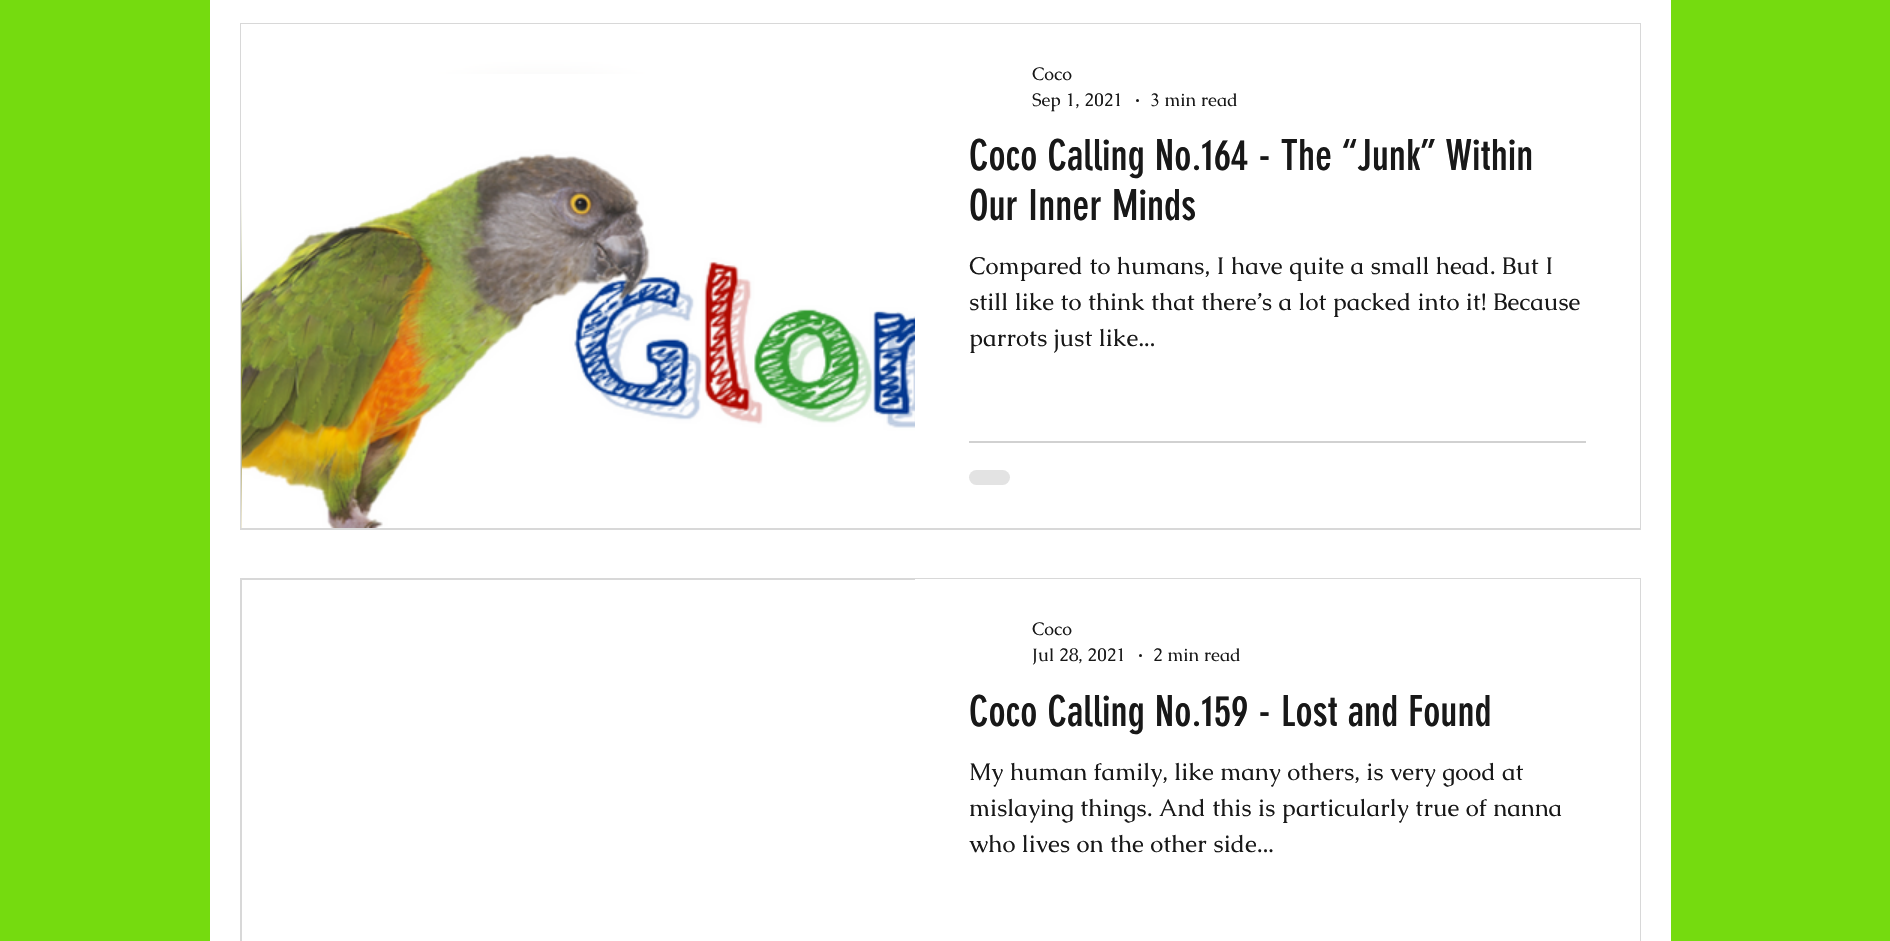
#include "include/core/SkBlurTypes.h"
#include "include/core/SkCanvas.h"
#include "include/core/SkData.h"
#include "include/core/SkFont.h"
#include "include/core/SkFontMgr.h"
#include "include/core/SkImage.h"
#include "include/core/SkMaskFilter.h"
#include "include/core/SkPaint.h"
#include "include/core/SkPathBuilder.h"
#include "include/core/SkTextBlob.h"
#include "include/effects/SkDashPathEffect.h"
#include "include/effects/SkGradientShader.h"
#include "include/utils/SkParsePath.h"

extern sk_sp<SkFontMgr> fontMgr;

void draw(SkCanvas* canvas) {
  SkPaint p;
  p.setAntiAlias(true);
  canvas->clear(SkColorSetRGB(117, 219, 15));
  p.setColor(SK_ColorWHITE);
  canvas->drawRect(SkRect::MakeLTRB(210, 0, 1671, 941), p);
  p.setStyle(SkPaint::kStroke_Style);
  p.setStrokeWidth(2);
  p.setColor(SkColorSetRGB(216, 216, 216));
  canvas->drawRect(SkRect::MakeLTRB(241, 24, 1640, 529), p);
  canvas->drawImageRect(SkImages::DeferredFromEncodedData(SkData::MakeFromFileName("images/1.png")), SkRect::MakeLTRB(241, 24, 915, 528), SkSamplingOptions());
  canvas->drawImageRect(SkImages::DeferredFromEncodedData(SkData::MakeFromFileName("images/2.png")), SkRect::MakeLTRB(242, 74, 915, 528), SkSamplingOptions());
  p.setStyle(SkPaint::kFill_Style);
  p.setColor(SK_ColorWHITE);
  canvas->drawRect(SkRect::MakeLTRB(915, 24, 1640, 528), p);
  p.setColor(SkColorSetRGB(24, 24, 24));
  canvas->drawCircle(1137.5f, 100.5f, 1.5f, p);
  p.setColor(SkColorSetRGB(209, 209, 209));
  canvas->drawRect(SkRect::MakeLTRB(969, 441, 1586, 443), p);
  p.setColor(SkColorSetRGB(227, 227, 227));
  canvas->drawRoundRect(SkRect::MakeLTRB(969, 470, 1010, 485), 7.5f, 7.5f, p);
  p.setStyle(SkPaint::kStroke_Style);
  p.setColor(SkColorSetRGB(216, 216, 216));
  canvas->drawRect(SkRect::MakeLTRB(241, 579, 1640, 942), p);
  p.setStyle(SkPaint::kFill_Style);
  p.setColor(SK_ColorWHITE);
  canvas->drawRect(SkRect::MakeLTRB(915, 579, 1640, 941), p);
  p.setColor(SkColorSetRGB(24, 24, 24));
  canvas->drawCircle(1140.5f, 655.5f, 1.5f, p);
  SkFont font1(fontMgr->matchFamilyStyle("Caudex", SkFontStyle::Normal()), 18);
  font1.setSubpixel(true);
  canvas->drawString("Coco", 1032, 80, font1, p);
  canvas->drawString("Sep 1, 2021", 1032, 106, font1, p);
  canvas->drawString("3 min read", 1150, 106, font1, p);
  SkFont font2(fontMgr->matchFamilyStyle("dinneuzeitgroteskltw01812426", SkFontStyle::Normal()), 42);
  font2.setSubpixel(true);
  canvas->drawString("Coco Calling No.164 - The “Junk” Within", 969, 170, font2, p);
  canvas->drawString("Our Inner Minds", 969, 220, font2, p);
  SkFont font3(fontMgr->matchFamilyStyle("Caudex", SkFontStyle::Normal()), 24);
  font3.setSubpixel(true);
  canvas->drawString("Compared to humans, I have quite a small head. But I", 969, 274, font3, p);
  canvas->drawString("still like to think that there’s a lot packed into it! Because", 969, 310, font3, p);
  canvas->drawString("parrots just like...", 969, 346, font3, p);
  canvas->drawString("Coco", 1032, 635, font1, p);
  canvas->drawString("Jul 28, 2021", 1032, 661, font1, p);
  canvas->drawString("2 min read", 1153, 661, font1, p);
  canvas->drawString("Coco Calling No.159 - Lost and Found", 969, 726, font2, p);
  canvas->drawString("My human family, like many others, is very good at", 969, 780, font3, p);
  canvas->drawString("mislaying things. And this is particularly true of nanna", 969, 816, font3, p);
  canvas->drawString("who lives on the other side...", 969, 852, font3, p);
}
